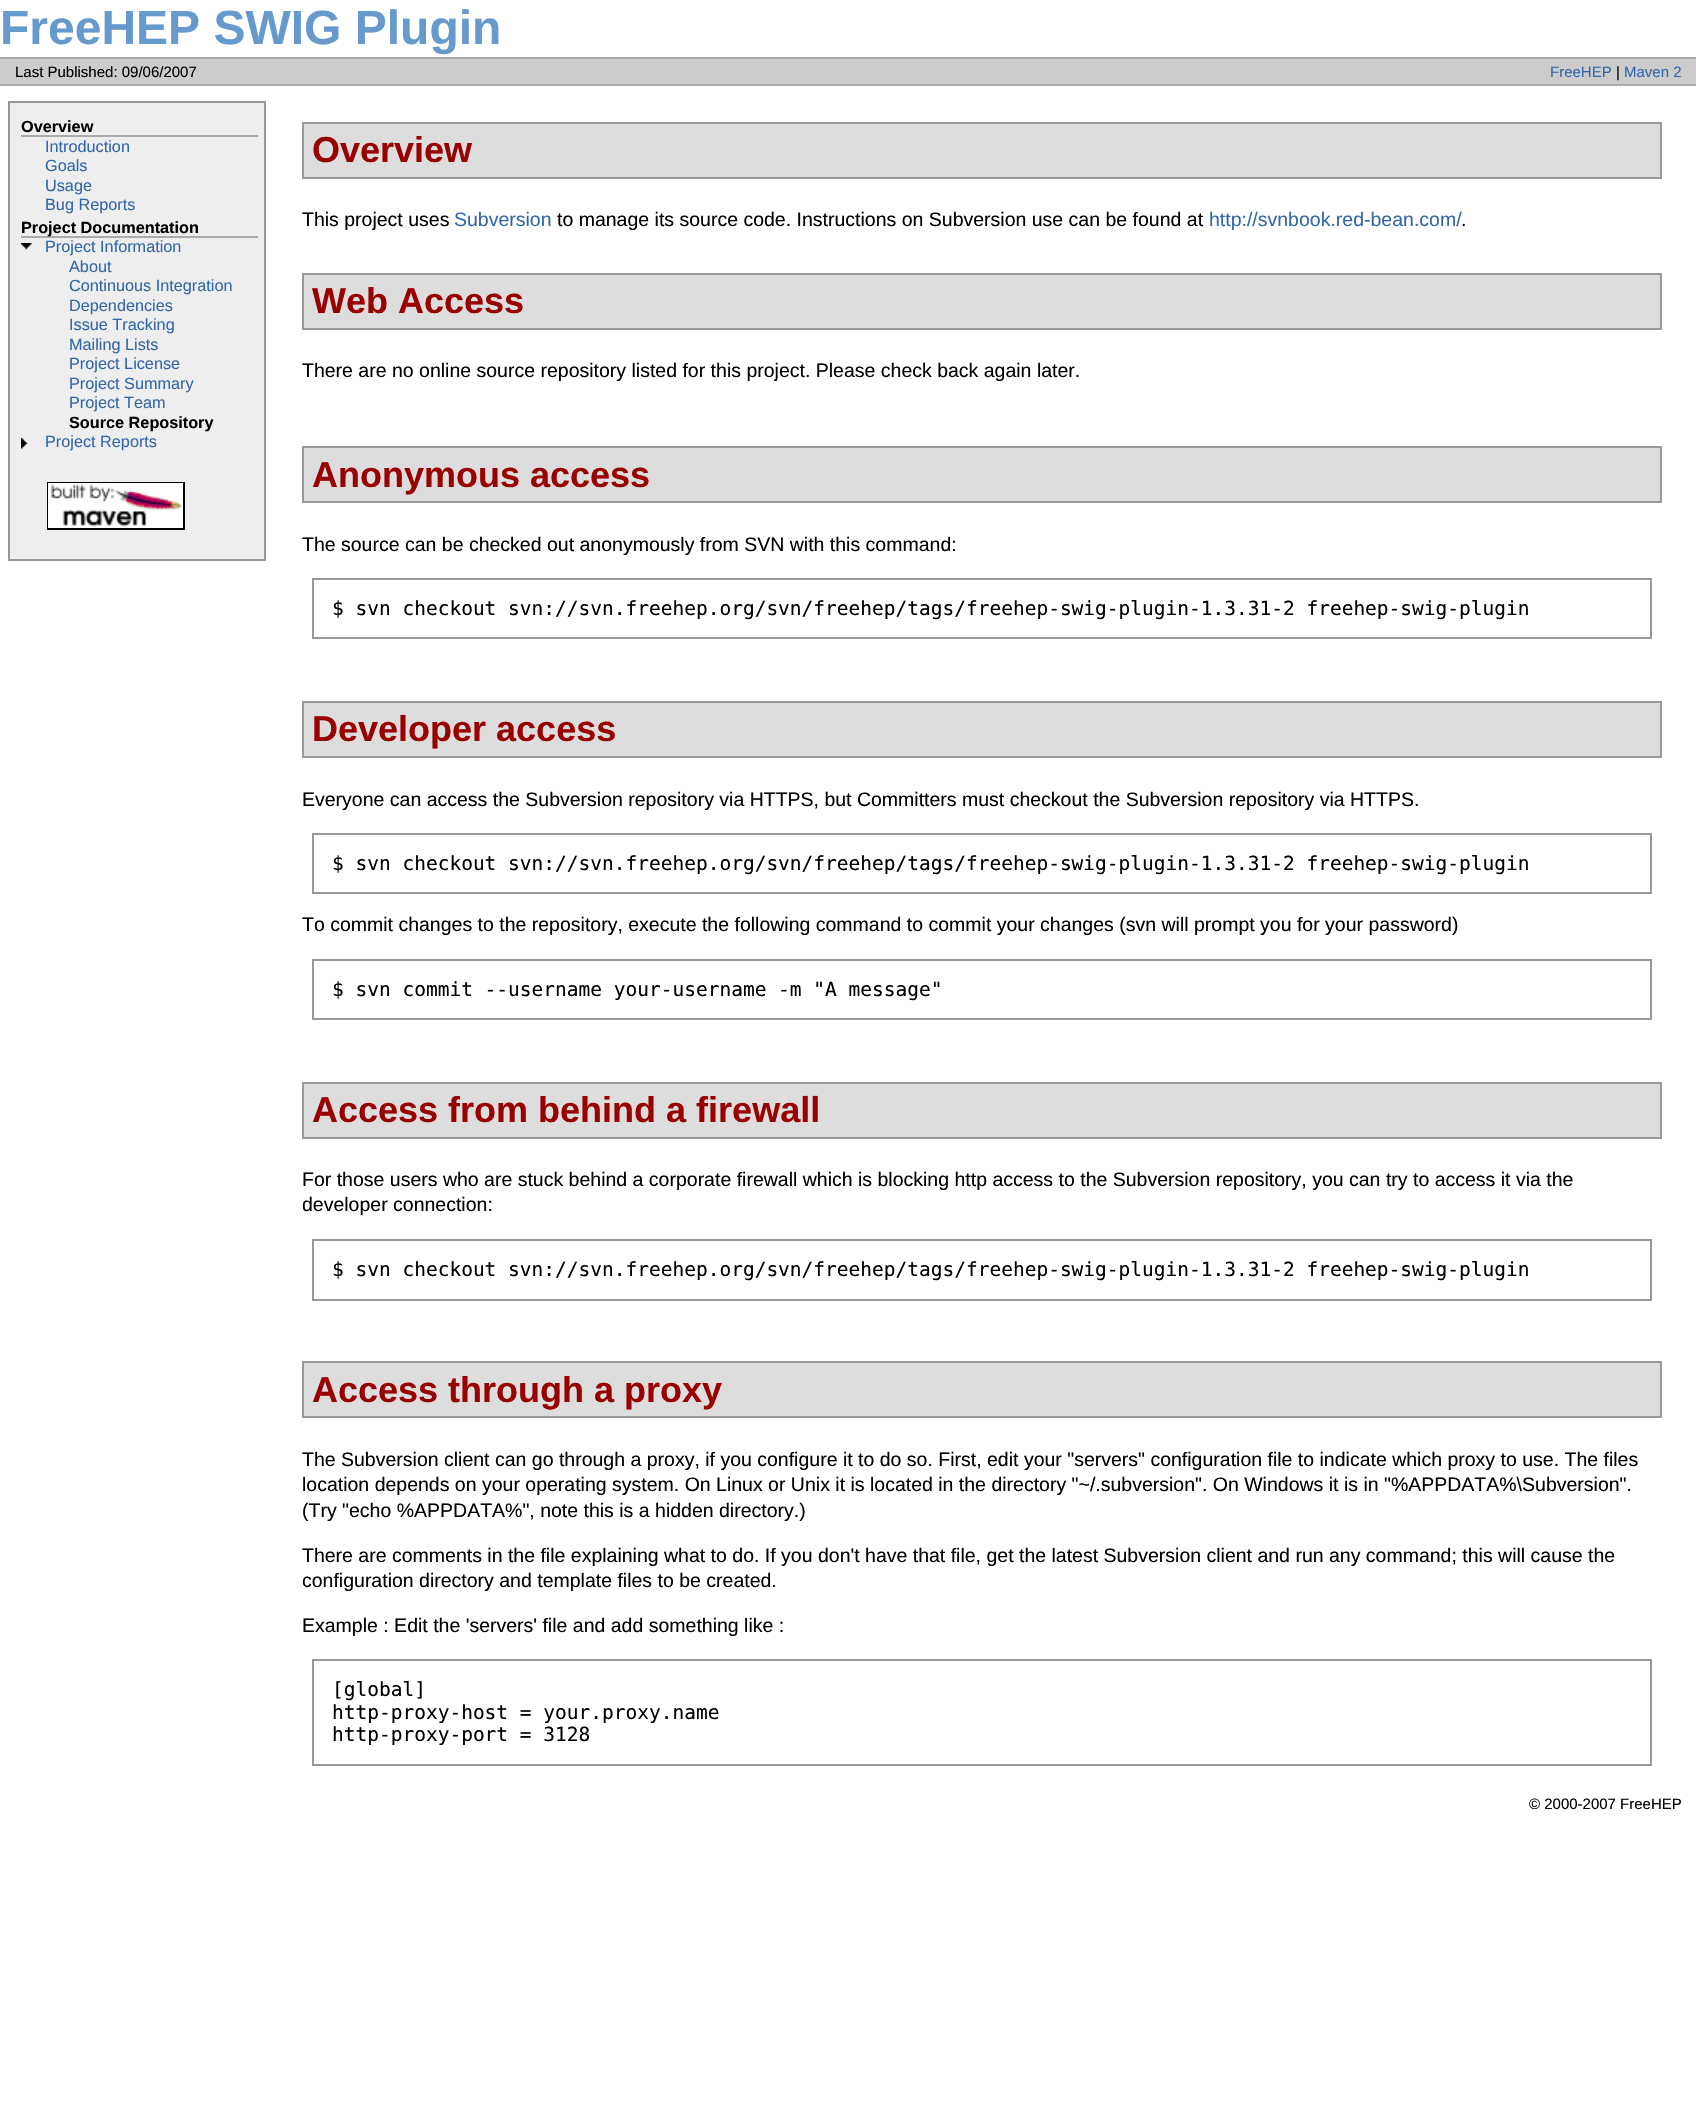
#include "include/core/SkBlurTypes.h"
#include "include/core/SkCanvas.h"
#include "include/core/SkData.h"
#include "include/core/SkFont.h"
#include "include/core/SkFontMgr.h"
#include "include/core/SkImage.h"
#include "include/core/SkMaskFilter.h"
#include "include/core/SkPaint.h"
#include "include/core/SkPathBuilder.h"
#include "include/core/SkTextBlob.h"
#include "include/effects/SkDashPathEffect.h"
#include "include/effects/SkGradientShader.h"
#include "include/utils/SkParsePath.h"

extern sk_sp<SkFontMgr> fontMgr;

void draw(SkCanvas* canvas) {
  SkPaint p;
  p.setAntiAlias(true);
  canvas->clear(SK_ColorWHITE);
  p.setColor(SkColorSetRGB(204, 204, 204));
  canvas->drawRect(SkRect::MakeLTRB(0, 59, 1696, 84), p);
  p.setColor(SkColorSetRGB(170, 170, 170));
  canvas->drawRect(SkRect::MakeLTRB(0, 57, 1696, 59), p);
  canvas->drawRect(SkRect::MakeLTRB(0, 84, 1696, 86), p);
  p.setColor(SkColorSetRGB(238, 238, 238));
  canvas->drawRect(SkRect::MakeLTRB(9, 102, 265, 560), p);
  p.setStyle(SkPaint::kStroke_Style);
  p.setStrokeWidth(2);
  p.setColor(SkColorSetRGB(153, 153, 153));
  canvas->drawRect(SkRect::MakeLTRB(9, 102, 265, 560), p);
  p.setStyle(SkPaint::kFill_Style);
  p.setColor(SkColorSetRGB(170, 170, 170));
  canvas->drawRect(SkRect::MakeLTRB(21, 135, 258, 137), p);
  canvas->drawRect(SkRect::MakeLTRB(21, 236, 258, 238), p);
  canvas->drawImageRect(SkImages::DeferredFromEncodedData(SkData::MakeFromFileName("images/1.png")), SkRect::MakeLTRB(21, 243, 32, 250), SkSamplingOptions());
  canvas->drawImageRect(SkImages::DeferredFromEncodedData(SkData::MakeFromFileName("images/2.png")), SkRect::MakeLTRB(21, 438, 28, 449), SkSamplingOptions());
  p.setStyle(SkPaint::kStroke_Style);
  p.setColor(SK_ColorBLACK);
  canvas->drawRect(SkRect::MakeLTRB(48, 483, 184, 529), p);
  canvas->drawImageRect(SkImages::DeferredFromEncodedData(SkData::MakeFromFileName("images/3.png")), SkRect::MakeLTRB(48, 483, 183, 528), SkSamplingOptions());
  p.setStyle(SkPaint::kFill_Style);
  p.setColor(SkColorSetRGB(221, 221, 221));
  canvas->drawRect(SkRect::MakeLTRB(303, 123, 1661, 178), p);
  p.setStyle(SkPaint::kStroke_Style);
  p.setColor(SkColorSetRGB(153, 153, 153));
  canvas->drawRect(SkRect::MakeLTRB(303, 123, 1661, 178), p);
  p.setStyle(SkPaint::kFill_Style);
  p.setColor(SkColorSetRGB(221, 221, 221));
  canvas->drawRect(SkRect::MakeLTRB(303, 274, 1661, 329), p);
  p.setStyle(SkPaint::kStroke_Style);
  p.setColor(SkColorSetRGB(153, 153, 153));
  canvas->drawRect(SkRect::MakeLTRB(303, 274, 1661, 329), p);
  p.setStyle(SkPaint::kFill_Style);
  p.setColor(SkColorSetRGB(221, 221, 221));
  canvas->drawRect(SkRect::MakeLTRB(303, 447, 1661, 502), p);
  p.setStyle(SkPaint::kStroke_Style);
  p.setColor(SkColorSetRGB(153, 153, 153));
  canvas->drawRect(SkRect::MakeLTRB(303, 447, 1661, 502), p);
  canvas->drawRect(SkRect::MakeLTRB(313, 579, 1651, 638), p);
  p.setStyle(SkPaint::kFill_Style);
  p.setColor(SkColorSetRGB(221, 221, 221));
  canvas->drawRect(SkRect::MakeLTRB(303, 702, 1661, 757), p);
  p.setStyle(SkPaint::kStroke_Style);
  p.setColor(SkColorSetRGB(153, 153, 153));
  canvas->drawRect(SkRect::MakeLTRB(303, 702, 1661, 757), p);
  canvas->drawRect(SkRect::MakeLTRB(313, 834, 1651, 893), p);
  canvas->drawRect(SkRect::MakeLTRB(313, 960, 1651, 1019), p);
  p.setStyle(SkPaint::kFill_Style);
  p.setColor(SkColorSetRGB(221, 221, 221));
  canvas->drawRect(SkRect::MakeLTRB(303, 1083, 1661, 1138), p);
  p.setStyle(SkPaint::kStroke_Style);
  p.setColor(SkColorSetRGB(153, 153, 153));
  canvas->drawRect(SkRect::MakeLTRB(303, 1083, 1661, 1138), p);
  canvas->drawRect(SkRect::MakeLTRB(313, 1240, 1651, 1300), p);
  p.setStyle(SkPaint::kFill_Style);
  p.setColor(SkColorSetRGB(221, 221, 221));
  canvas->drawRect(SkRect::MakeLTRB(303, 1362, 1661, 1417), p);
  p.setStyle(SkPaint::kStroke_Style);
  p.setColor(SkColorSetRGB(153, 153, 153));
  canvas->drawRect(SkRect::MakeLTRB(303, 1362, 1661, 1417), p);
  canvas->drawRect(SkRect::MakeLTRB(313, 1660, 1651, 1765), p);
  SkFont font1(fontMgr->matchFamilyStyle("Liberation Sans", SkFontStyle::Bold()), 48);
  font1.setSubpixel(true);
  p.setStyle(SkPaint::kFill_Style);
  p.setColor(SkColorSetRGB(102, 153, 204));
  canvas->drawString("FreeHEP SWIG Plugin", 0, 44, font1, p);
  SkFont font2(fontMgr->matchFamilyStyle("Liberation Sans", SkFontStyle::Normal()), 15);
  font2.setSubpixel(true);
  p.setColor(SK_ColorBLACK);
  canvas->drawString("Last Published: 09/06/2007", 15, 77, font2, p);
  p.setColor(SkColorSetRGB(51, 102, 170));
  canvas->drawString("FreeHEP", 1550, 77, font2, p);
  p.setColor(SK_ColorBLACK);
  canvas->drawString("|", 1616, 77, font2, p);
  p.setColor(SkColorSetRGB(51, 102, 170));
  canvas->drawString("Maven 2", 1624, 77, font2, p);
  SkFont font3(fontMgr->matchFamilyStyle("Liberation Sans", SkFontStyle::Bold()), 16.25f);
  font3.setSubpixel(true);
  p.setColor(SK_ColorBLACK);
  canvas->drawString("Overview", 21, 132, font3, p);
  SkFont font4(fontMgr->matchFamilyStyle("Liberation Sans", SkFontStyle::Normal()), 16.25f);
  font4.setSubpixel(true);
  p.setColor(SkColorSetRGB(51, 102, 170));
  canvas->drawString("Introduction", 45, 152, font4, p);
  canvas->drawString("Goals", 45, 171, font4, p);
  canvas->drawString("Usage", 45, 191, font4, p);
  canvas->drawString("Bug Reports", 45, 210, font4, p);
  p.setColor(SK_ColorBLACK);
  canvas->drawString("Project Documentation", 21, 233, font3, p);
  p.setColor(SkColorSetRGB(51, 102, 170));
  canvas->drawString("Project Information", 45, 252, font4, p);
  canvas->drawString("About", 69, 272, font4, p);
  canvas->drawString("Continuous Integration", 69, 291, font4, p);
  canvas->drawString("Dependencies", 69, 311, font4, p);
  canvas->drawString("Issue Tracking", 69, 330, font4, p);
  canvas->drawString("Mailing Lists", 69, 350, font4, p);
  canvas->drawString("Project License", 69, 369, font4, p);
  canvas->drawString("Project Summary", 69, 389, font4, p);
  canvas->drawString("Project Team", 69, 408, font4, p);
  p.setColor(SK_ColorBLACK);
  canvas->drawString("Source Repository", 69, 428, font3, p);
  p.setColor(SkColorSetRGB(51, 102, 170));
  canvas->drawString("Project Reports", 45, 447, font4, p);
  SkFont font5(fontMgr->matchFamilyStyle("Liberation Sans", SkFontStyle::Bold()), 36);
  font5.setSubpixel(true);
  p.setColor(SkColorSetRGB(153, 0, 0));
  canvas->drawString("Overview", 312, 162, font5, p);
  SkFont font6(fontMgr->matchFamilyStyle("Liberation Sans", SkFontStyle::Normal()), 19.5f);
  font6.setSubpixel(true);
  p.setColor(SK_ColorBLACK);
  canvas->drawString("This project uses", 302, 226, font6, p);
  p.setColor(SkColorSetRGB(51, 102, 170));
  canvas->drawString("Subversion", 454, 226, font6, p);
  p.setColor(SK_ColorBLACK);
  canvas->drawString("to manage its source code. Instructions on Subversion use can be found at", 557, 226, font6, p);
  p.setColor(SkColorSetRGB(51, 102, 170));
  canvas->drawString("http://svnbook.red-bean.com/", 1209, 226, font6, p);
  p.setColor(SK_ColorBLACK);
  canvas->drawString(".", 1461, 226, font6, p);
  p.setColor(SkColorSetRGB(153, 0, 0));
  canvas->drawString("Web Access", 312, 313, font5, p);
  p.setColor(SK_ColorBLACK);
  canvas->drawString("There are no online source repository listed for this project. Please check back again later.", 302, 377, font6, p);
  p.setColor(SkColorSetRGB(153, 0, 0));
  canvas->drawString("Anonymous access", 312, 487, font5, p);
  p.setColor(SK_ColorBLACK);
  canvas->drawString("The source can be checked out anonymously from SVN with this command:", 302, 551, font6, p);
  SkFont font7(fontMgr->matchFamilyStyle("DejaVu Sans Mono", SkFontStyle::Normal()), 19.5f);
  font7.setSubpixel(true);
  canvas->drawString("$ svn checkout svn://svn.freehep.org/svn/freehep/tags/freehep-swig-plugin-1.3.31-2 freehep-swig-plugin", 332, 615, font7, p);
  p.setColor(SkColorSetRGB(153, 0, 0));
  canvas->drawString("Developer access", 312, 741, font5, p);
  p.setColor(SK_ColorBLACK);
  canvas->drawString("Everyone can access the Subversion repository via HTTPS, but Committers must checkout the Subversion repository via HTTPS.", 302, 806, font6, p);
  canvas->drawString("$ svn checkout svn://svn.freehep.org/svn/freehep/tags/freehep-swig-plugin-1.3.31-2 freehep-swig-plugin", 332, 870, font7, p);
  canvas->drawString("To commit changes to the repository, execute the following command to commit your changes (svn will prompt you for your password)", 302, 931, font6, p);
  canvas->drawString("$ svn commit --username your-username -m \"A message\"", 332, 996, font7, p);
  p.setColor(SkColorSetRGB(153, 0, 0));
  canvas->drawString("Access from behind a firewall", 312, 1122, font5, p);
  p.setColor(SK_ColorBLACK);
  canvas->drawString("For those users who are stuck behind a corporate firewall which is blocking http access to the Subversion repository, you can try to access it via the", 302, 1186, font6, p);
  canvas->drawString("developer connection:", 302, 1211, font6, p);
  canvas->drawString("$ svn checkout svn://svn.freehep.org/svn/freehep/tags/freehep-swig-plugin-1.3.31-2 freehep-swig-plugin", 332, 1276, font7, p);
  p.setColor(SkColorSetRGB(153, 0, 0));
  canvas->drawString("Access through a proxy", 312, 1402, font5, p);
  p.setColor(SK_ColorBLACK);
  canvas->drawString("The Subversion client can go through a proxy, if you configure it to do so. First, edit your \"servers\" configuration file to indicate which proxy to use. The files", 302, 1466, font6, p);
  canvas->drawString("location depends on your operating system. On Linux or Unix it is located in the directory \"~/.subversion\". On Windows it is in \"%APPDATA%\\Subversion\".", 302, 1491, font6, p);
  canvas->drawString("(Try \"echo %APPDATA%\", note this is a hidden directory.)", 302, 1517, font6, p);
  canvas->drawString("There are comments in the file explaining what to do. If you don't have that file, get the latest Subversion client and run any command; this will cause the", 302, 1562, font6, p);
  canvas->drawString("configuration directory and template files to be created.", 302, 1587, font6, p);
  canvas->drawString("Example : Edit the 'servers' file and add something like :", 302, 1632, font6, p);
  canvas->drawString("[global]", 332, 1696, font7, p);
  canvas->drawString("http-proxy-host = your.proxy.name", 332, 1719, font7, p);
  canvas->drawString("http-proxy-port = 3128", 332, 1741, font7, p);
  canvas->drawString("© 2000-2007 FreeHEP", 1529, 1809, font2, p);
}
